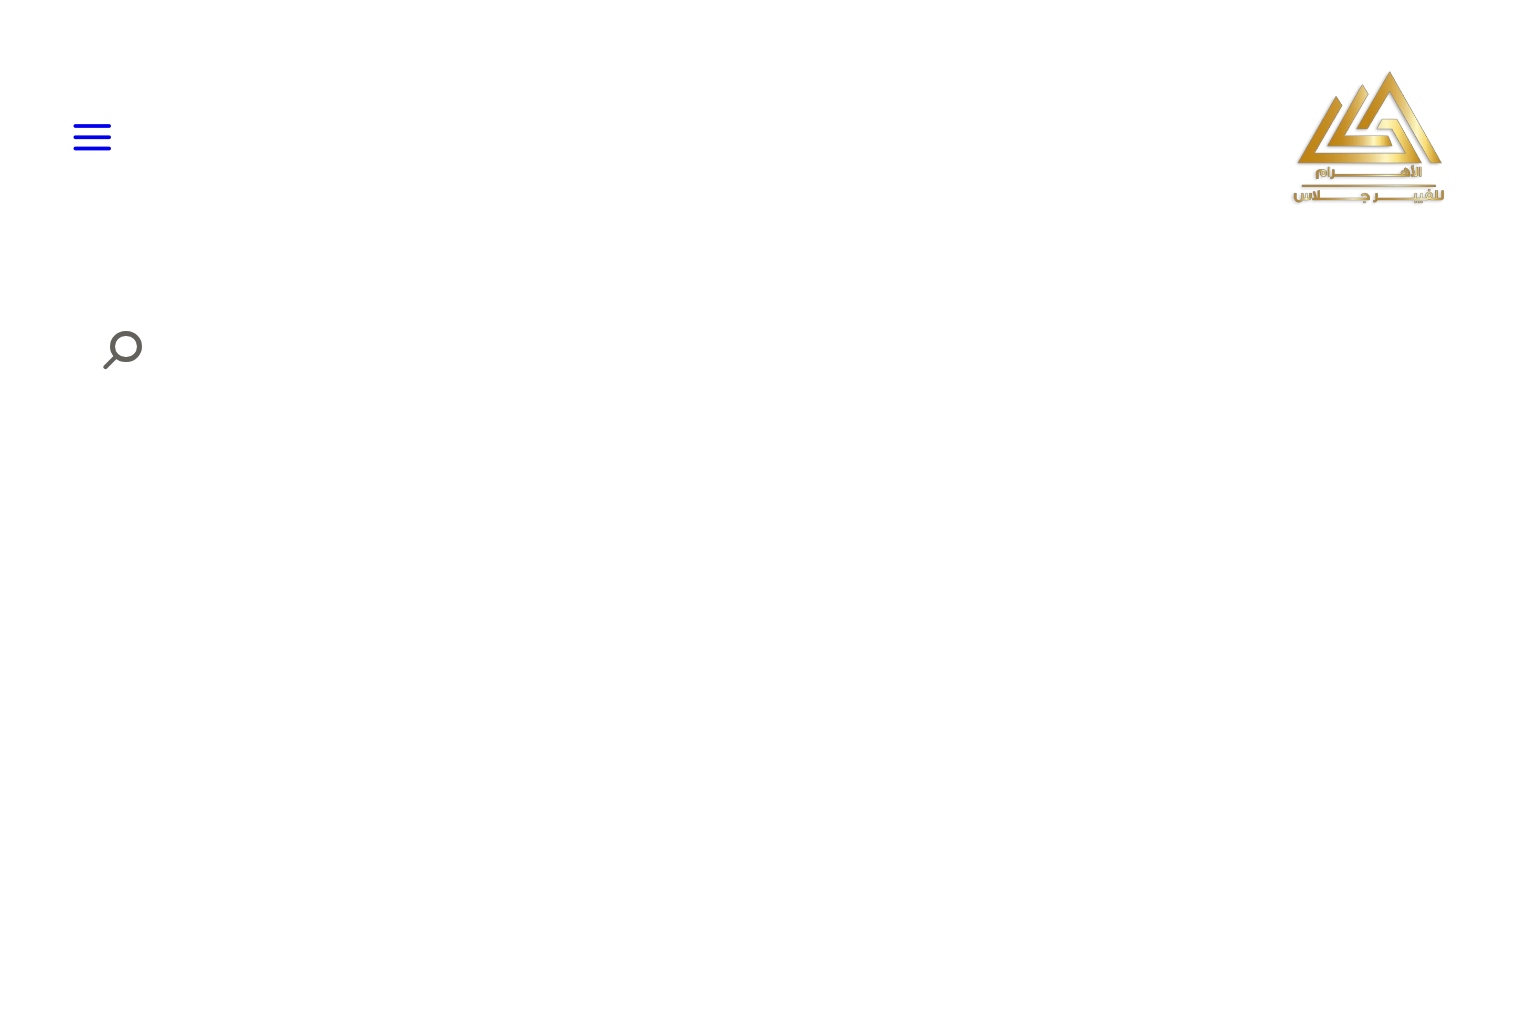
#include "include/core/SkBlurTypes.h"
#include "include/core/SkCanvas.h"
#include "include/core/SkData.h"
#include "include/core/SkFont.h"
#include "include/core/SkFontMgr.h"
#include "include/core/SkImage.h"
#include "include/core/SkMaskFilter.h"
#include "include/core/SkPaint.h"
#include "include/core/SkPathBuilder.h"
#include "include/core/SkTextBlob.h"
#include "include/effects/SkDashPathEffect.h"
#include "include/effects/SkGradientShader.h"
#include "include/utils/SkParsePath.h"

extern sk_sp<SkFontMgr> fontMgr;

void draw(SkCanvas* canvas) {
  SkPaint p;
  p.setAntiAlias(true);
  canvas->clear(SK_ColorWHITE);
  canvas->drawImageRect(SkImages::DeferredFromEncodedData(SkData::MakeFromFileName("images/1.png")), SkRect::MakeLTRB(73, 124, 111, 151), SkSamplingOptions());
  canvas->drawImageRect(SkImages::DeferredFromEncodedData(SkData::MakeFromFileName("images/2.png")), SkRect::MakeLTRB(1290, 71, 1444, 206), SkSamplingOptions());
  p.setStyle(SkPaint::kStroke_Style);
  p.setStrokeWidth(5);
  p.setColor(SkColorSetRGB(98, 97, 92));
  canvas->drawRoundRect(SkRect::MakeLTRB(112.5f, 333.5f, 139.5f, 359.5f), 13, 13, p);
  p.setStyle(SkPaint::kFill_Style);
  canvas->drawPath(SkPathBuilder().moveTo(116.5f, 356).cubicTo(117.5f, 357, 117.5f, 358, 116.5f, 359).lineTo(107, 368.5f).cubicTo(106, 369.5f, 105, 369.5f, 104, 368.5f).cubicTo(103, 367.5f, 103, 366.5f, 104, 365.5f).lineTo(113.5f, 356).cubicTo(114.5f, 355, 115.5f, 355, 116.5f, 356).close().detach(), p);
}
